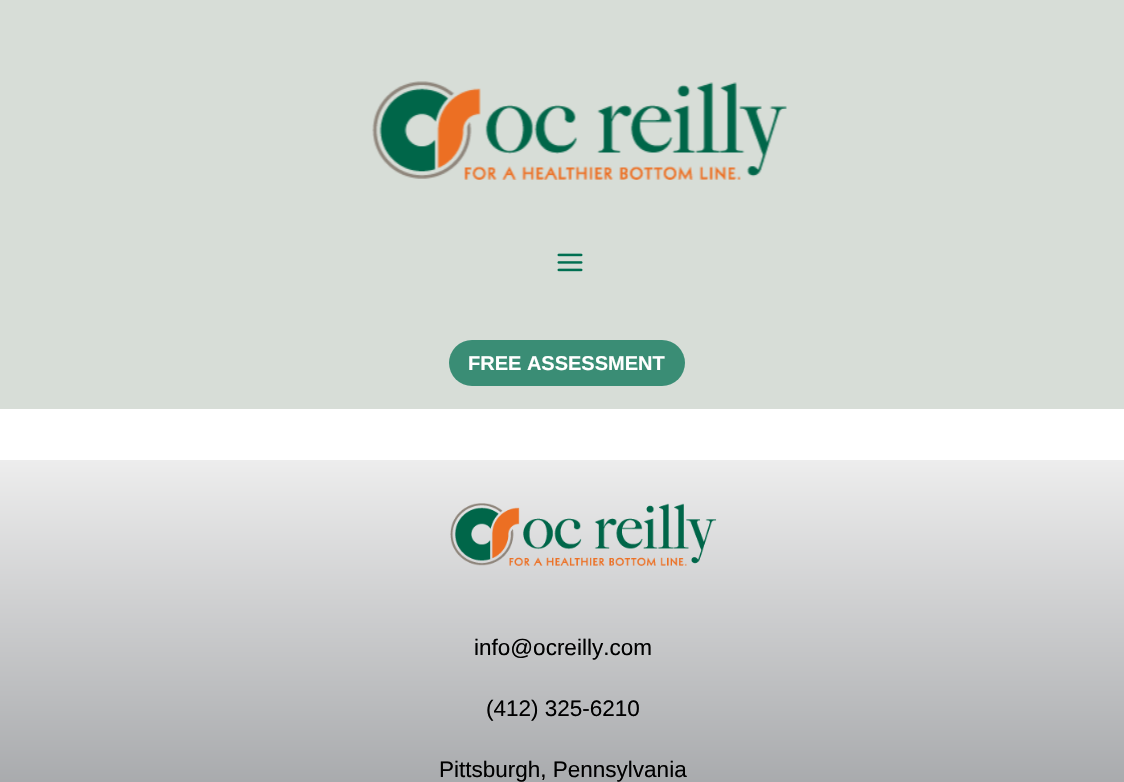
#include "include/core/SkBlurTypes.h"
#include "include/core/SkCanvas.h"
#include "include/core/SkData.h"
#include "include/core/SkFont.h"
#include "include/core/SkFontMgr.h"
#include "include/core/SkImage.h"
#include "include/core/SkMaskFilter.h"
#include "include/core/SkPaint.h"
#include "include/core/SkPathBuilder.h"
#include "include/core/SkTextBlob.h"
#include "include/effects/SkDashPathEffect.h"
#include "include/effects/SkGradientShader.h"
#include "include/utils/SkParsePath.h"

extern sk_sp<SkFontMgr> fontMgr;

void draw(SkCanvas* canvas) {
  SkPaint p;
  p.setAntiAlias(true);
  canvas->clear(SK_ColorWHITE);
  p.setColor(SkColorSetRGB(215, 221, 215));
  canvas->drawRect(SkRect::MakeLTRB(0, 0, 1124, 409), p);
  canvas->drawImageRect(SkImages::DeferredFromEncodedData(SkData::MakeFromFileName("images/1.png")), SkRect::MakeLTRB(372, 81, 787, 180), SkSamplingOptions());
  canvas->drawImageRect(SkImages::DeferredFromEncodedData(SkData::MakeFromFileName("images/2.png")), SkRect::MakeLTRB(557, 253, 583, 272), SkSamplingOptions());
  p.setColor(SkColorSetRGB(58, 141, 117));
  canvas->drawRoundRect(SkRect::MakeLTRB(449, 340, 685, 386), 23, 23, p);
  {
    const SkColor colors[] = {SkColorSetRGB(237, 237, 237), SkColorSetRGB(161, 163, 166), SkColorSetRGB(126, 131, 137)};
    const float stops[] = {0, 0.65f, 1};
    const SkPoint ends[] = {{563, 460}, {563, 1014}};
    p.setShader(SkGradientShader::MakeLinear(ends, colors, stops, 3, SkTileMode::kClamp));
    p.setAlpha(255);
  }
  canvas->drawRect(SkRect::MakeLTRB(0, 460, 1124, 782), p);
  canvas->drawImageRect(SkImages::DeferredFromEncodedData(SkData::MakeFromFileName("images/3.png")), SkRect::MakeLTRB(450, 503, 717, 566), SkSamplingOptions());
  SkFont font1(fontMgr->matchFamilyStyle("Liberation Sans", SkFontStyle::Bold()), 20);
  font1.setSubpixel(true);
  p.setShader(nullptr);
  p.setColor(SK_ColorWHITE);
  canvas->drawString("FREE ASSESSMENT", 468, 370, font1, p);
  SkFont font2(fontMgr->matchFamilyStyle("Liberation Sans", SkFontStyle::Normal()), 22.5f);
  font2.setSubpixel(true);
  p.setColor(SK_ColorBLACK);
  canvas->drawString("info@ocreilly.com", 474, 655, font2, p);
  canvas->drawString("(412) 325-6210", 486, 716, font2, p);
  canvas->drawString("Pittsburgh, Pennsylvania", 439, 777, font2, p);
}
